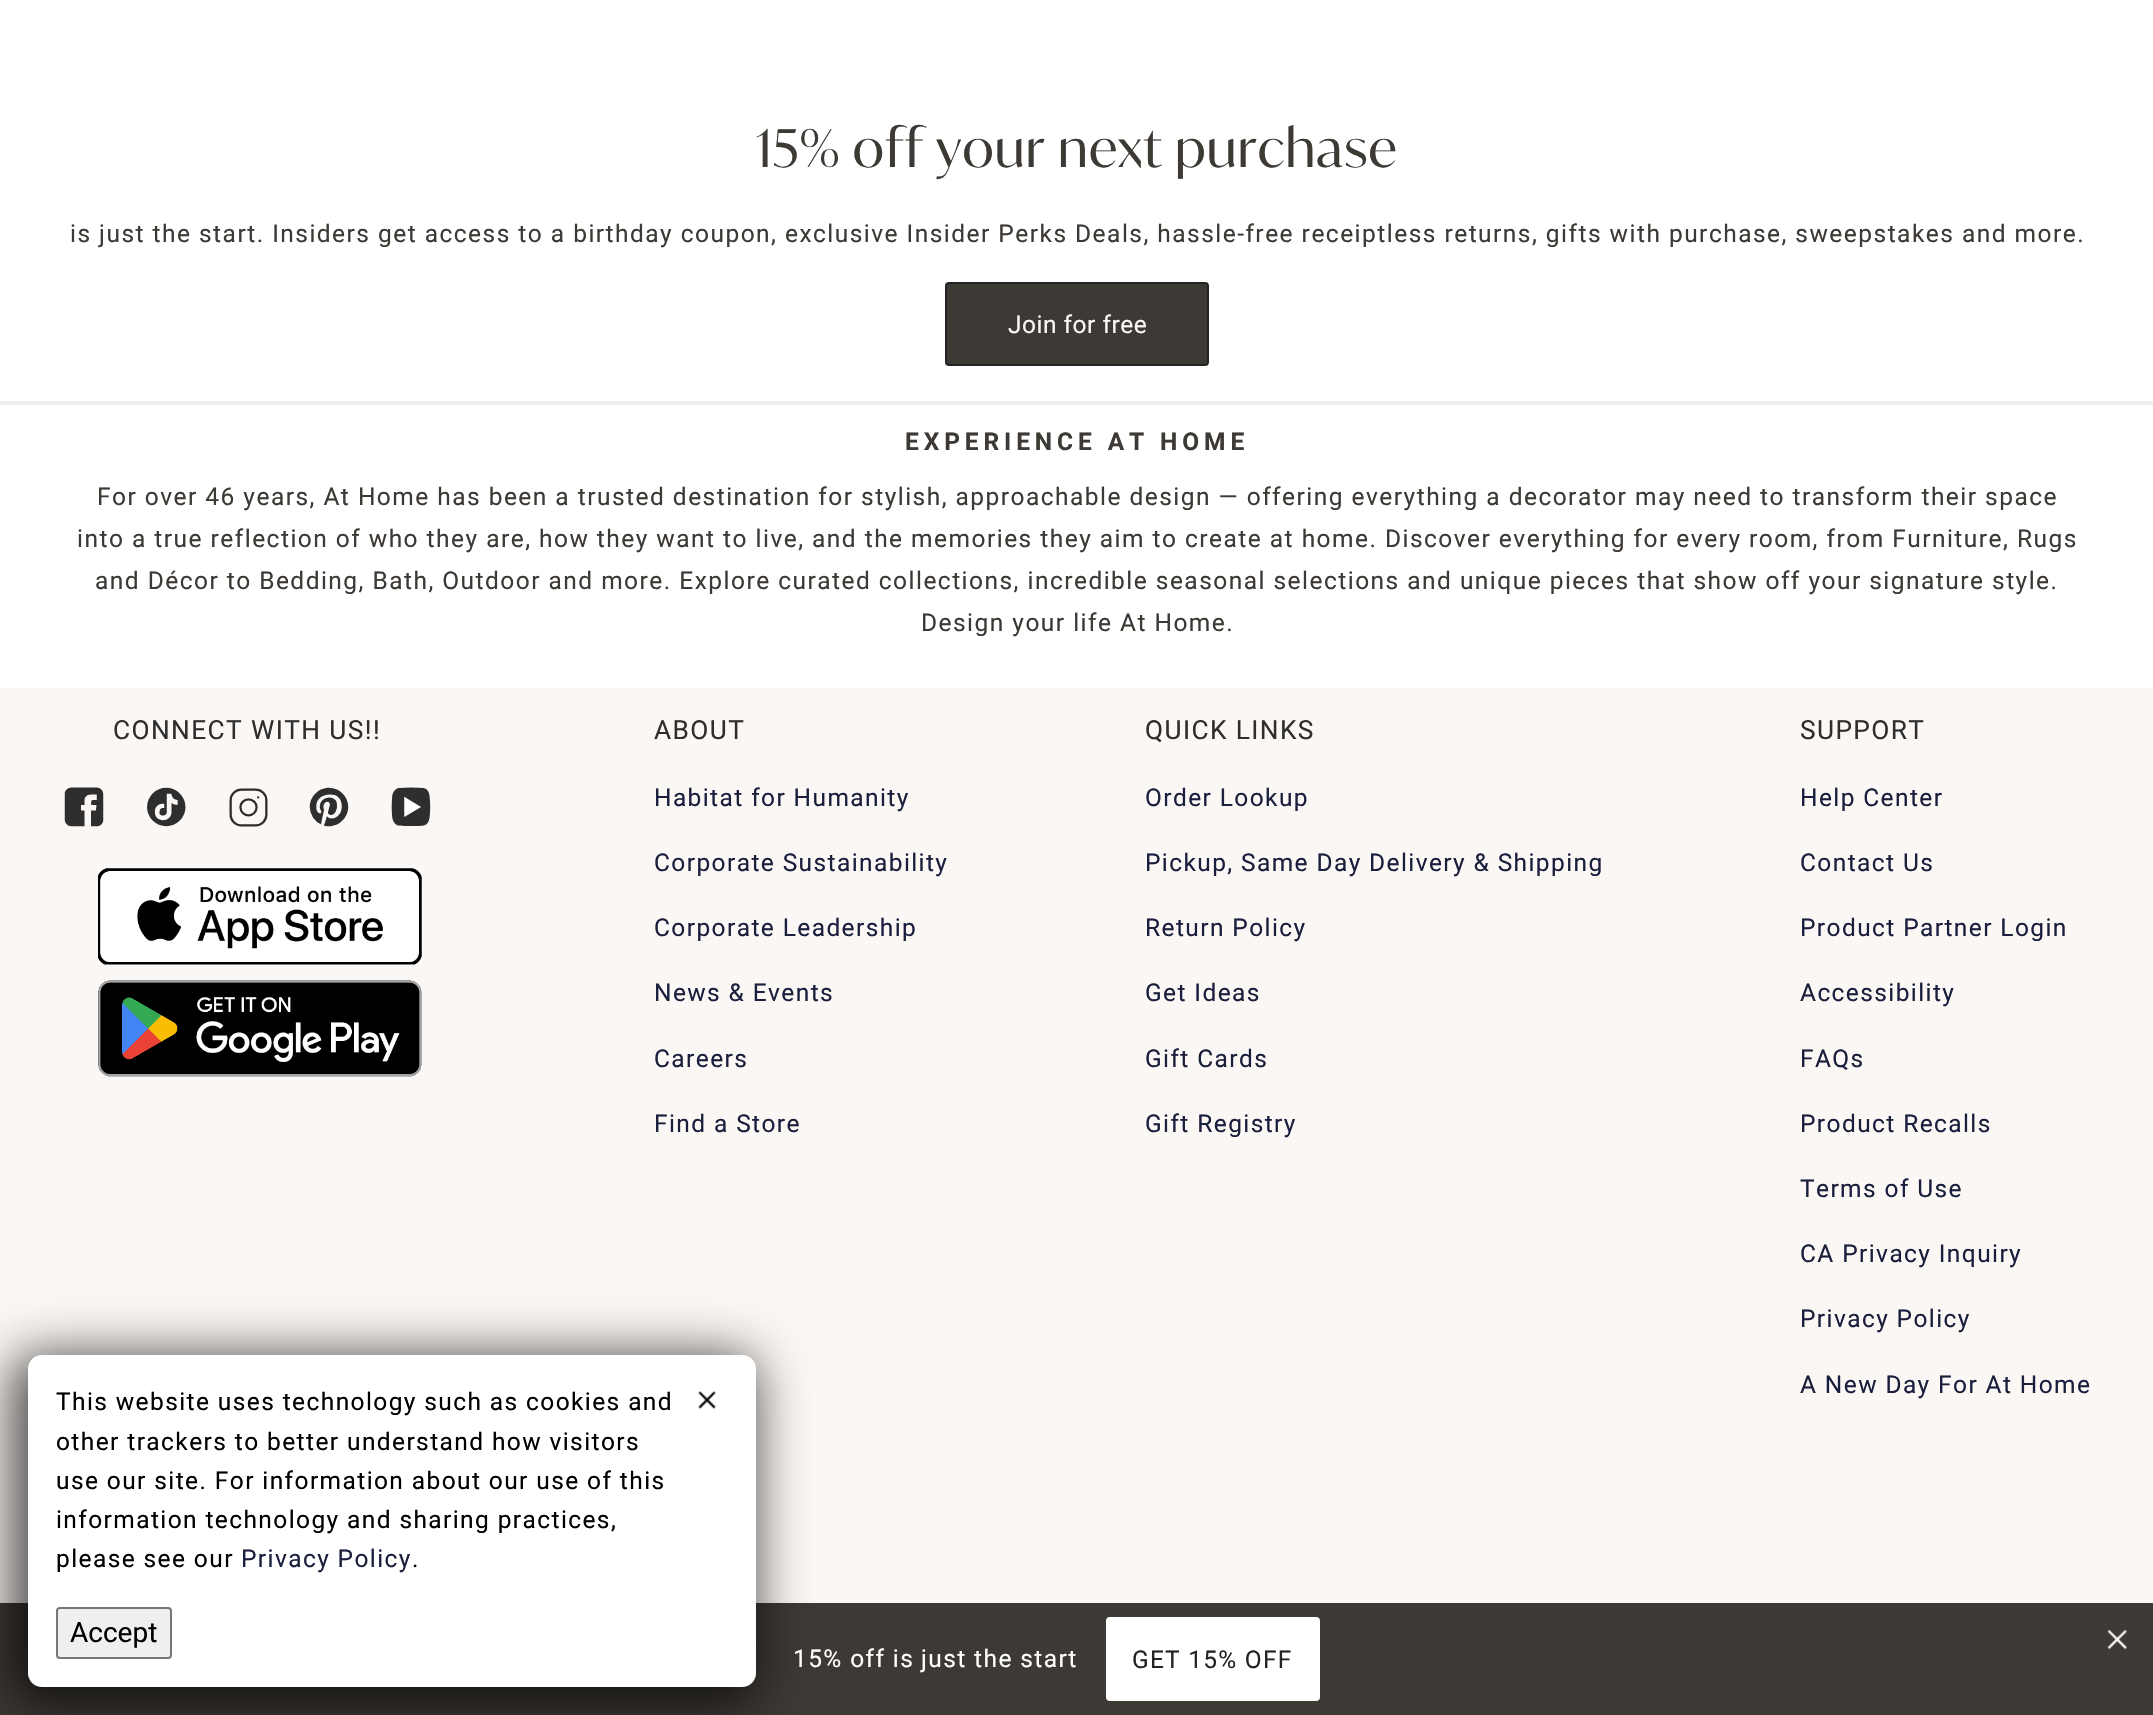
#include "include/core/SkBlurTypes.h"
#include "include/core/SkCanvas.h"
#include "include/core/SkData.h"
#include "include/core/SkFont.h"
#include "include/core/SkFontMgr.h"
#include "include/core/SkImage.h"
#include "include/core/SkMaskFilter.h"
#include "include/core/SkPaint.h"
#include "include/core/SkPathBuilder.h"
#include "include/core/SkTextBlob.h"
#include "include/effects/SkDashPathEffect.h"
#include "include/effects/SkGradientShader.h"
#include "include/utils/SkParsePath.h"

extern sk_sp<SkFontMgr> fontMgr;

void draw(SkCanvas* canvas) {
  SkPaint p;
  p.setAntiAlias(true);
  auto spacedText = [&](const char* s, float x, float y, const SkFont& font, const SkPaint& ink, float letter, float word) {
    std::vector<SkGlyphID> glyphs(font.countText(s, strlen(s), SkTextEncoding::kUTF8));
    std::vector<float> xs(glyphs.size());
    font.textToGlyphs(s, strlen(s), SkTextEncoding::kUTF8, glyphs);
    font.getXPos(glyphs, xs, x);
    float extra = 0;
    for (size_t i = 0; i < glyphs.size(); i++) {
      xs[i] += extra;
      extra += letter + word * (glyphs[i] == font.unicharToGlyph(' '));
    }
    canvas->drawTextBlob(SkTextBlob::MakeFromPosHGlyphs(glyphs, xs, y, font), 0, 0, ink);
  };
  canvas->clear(SK_ColorWHITE);
  p.setColor(SkColorSetRGB(61, 57, 53));
  canvas->drawRoundRect(SkRect::MakeLTRB(946, 283, 1208, 365), 3, 3, p);
  p.setStyle(SkPaint::kStroke_Style);
  p.setStrokeWidth(2);
  p.setColor(SkColorSetRGB(36, 36, 36));
  canvas->drawRoundRect(SkRect::MakeLTRB(946, 283, 1208, 365), 3, 3, p);
  p.setStyle(SkPaint::kFill_Style);
  p.setColor(SkColorSetRGB(239, 239, 239));
  canvas->drawRect(SkRect::MakeLTRB(0, 401, 2153, 405), p);
  p.setColor(SkColorSetRGB(251, 247, 244));
  canvas->drawRect(SkRect::MakeLTRB(0, 688, 2153, 1603), p);
  canvas->drawImageRect(SkImages::DeferredFromEncodedData(SkData::MakeFromFileName("images/1.png")), SkRect::MakeLTRB(64, 787, 104, 827), SkSamplingOptions());
  canvas->drawImageRect(SkImages::DeferredFromEncodedData(SkData::MakeFromFileName("images/2.png")), SkRect::MakeLTRB(147, 787, 186, 827), SkSamplingOptions());
  canvas->drawImageRect(SkImages::DeferredFromEncodedData(SkData::MakeFromFileName("images/3.png")), SkRect::MakeLTRB(229, 788, 268, 827), SkSamplingOptions());
  canvas->drawImageRect(SkImages::DeferredFromEncodedData(SkData::MakeFromFileName("images/4.png")), SkRect::MakeLTRB(309, 787, 349, 827), SkSamplingOptions());
  canvas->drawImageRect(SkImages::DeferredFromEncodedData(SkData::MakeFromFileName("images/5.png")), SkRect::MakeLTRB(391, 787, 431, 826), SkSamplingOptions());
  canvas->drawImageRect(SkImages::DeferredFromEncodedData(SkData::MakeFromFileName("images/6.png")), SkRect::MakeLTRB(98, 868, 422, 965), SkSamplingOptions());
  canvas->drawImageRect(SkImages::DeferredFromEncodedData(SkData::MakeFromFileName("images/7.png")), SkRect::MakeLTRB(98, 980, 422, 1077), SkSamplingOptions());
  p.setColor(SkColorSetRGB(61, 57, 53));
  canvas->drawRect(SkRect::MakeLTRB(0, 1603, 2153, 1715), p);
  canvas->drawImageRect(SkImages::DeferredFromEncodedData(SkData::MakeFromFileName("images/8.png")), SkRect::MakeLTRB(2107, 1629, 2128, 1650), SkSamplingOptions());
  p.setColor(SK_ColorWHITE);
  canvas->drawRoundRect(SkRect::MakeLTRB(1107, 1618, 1319, 1700), 3, 3, p);
  p.setStyle(SkPaint::kStroke_Style);
  canvas->drawRoundRect(SkRect::MakeLTRB(1107, 1618, 1319, 1700), 3, 3, p);
  p.setStyle(SkPaint::kFill_Style);
  p.setColor(SkColorSetARGB(179, 0, 0, 0));
  p.setMaskFilter(SkMaskFilter::MakeBlur(kNormal_SkBlurStyle, 26));
  canvas->drawRoundRect(SkRect::MakeLTRB(11, 1355, 756, 1705), 23, 23, p);
  p.setMaskFilter(nullptr);
  p.setColor(SK_ColorWHITE);
  canvas->drawRoundRect(SkRect::MakeLTRB(28, 1355, 756, 1687), 14, 14, p);
  canvas->drawImageRect(SkImages::DeferredFromEncodedData(SkData::MakeFromFileName("images/9.png")), SkRect::MakeLTRB(698, 1391, 716, 1409), SkSamplingOptions());
  p.setColor(SkColorSetRGB(239, 239, 239));
  canvas->drawRoundRect(SkRect::MakeLTRB(57, 1608, 171, 1658), 3, 3, p);
  p.setStyle(SkPaint::kStroke_Style);
  p.setColor(SkColorSetRGB(118, 118, 118));
  canvas->drawRoundRect(SkRect::MakeLTRB(57, 1608, 171, 1658), 3, 3, p);
  SkFont font1(fontMgr->matchFamilyStyle("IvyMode", SkFontStyle::Normal()), 52.5f);
  font1.setSubpixel(true);
  p.setStyle(SkPaint::kFill_Style);
  p.setColor(SkColorSetRGB(61, 57, 53));
  spacedText("15% off your next purchase", 756, 167, font1, p, 1.3f, 0);
  SkFont font2(fontMgr->matchFamilyStyle("Roboto", SkFontStyle::Normal()), 24.5f);
  font2.setSubpixel(true);
  spacedText("is just the start. Insiders get access to a birthday coupon, exclusive Insider Perks Deals, hassle-free receiptless returns, gifts with purchase, sweepstakes and more.", 70, 242, font2, p, 1.47f, 0);
  p.setColor(SkColorSetRGB(251, 247, 244));
  spacedText("Join for free", 1008, 333, font2, p, 0.5f, 0);
  SkFont font3(fontMgr->matchFamilyStyle("Roboto", SkFontStyle::Bold()), 24.5f);
  font3.setSubpixel(true);
  p.setColor(SkColorSetRGB(61, 57, 53));
  spacedText("EXPERIENCE AT HOME", 905, 450, font3, p, 4.9f, 0);
  spacedText("For over 46 years, At Home has been a trusted destination for stylish, approachable design — offering everything a decorator may need to transform their space", 97, 505, font2, p, 1.47f, 0);
  spacedText("into a true reflection of who they are, how they want to live, and the memories they aim to create at home. Discover everything for every room, from Furniture, Rugs", 77, 547, font2, p, 1.47f, 0);
  spacedText("and Décor to Bedding, Bath, Outdoor and more. Explore curated collections, incredible seasonal selections and unique pieces that show off your signature style.", 95, 589, font2, p, 1.47f, 0);
  spacedText("Design your life At Home.", 921, 631, font2, p, 1.47f, 0);
  SkFont font4(fontMgr->matchFamilyStyle("Roboto", SkFontStyle::Normal()), 26.25f);
  font4.setSubpixel(true);
  p.setColor(SkColorSetRGB(46, 46, 46));
  spacedText("CONNECT WITH US!!", 113, 739, font4, p, 1.4f, 0);
  spacedText("ABOUT", 654, 739, font4, p, 1.4f, 0);
  p.setColor(SkColorSetRGB(26, 31, 61));
  spacedText("Habitat for Humanity", 654, 806, font2, p, 1.4f, 0);
  spacedText("Corporate Sustainability", 654, 871, font2, p, 1.4f, 0);
  spacedText("Corporate Leadership", 654, 936, font2, p, 1.4f, 0);
  spacedText("News & Events", 654, 1001, font2, p, 1.4f, 0);
  spacedText("Careers", 654, 1067, font2, p, 1.4f, 0);
  spacedText("Find a Store", 654, 1132, font2, p, 1.4f, 0);
  p.setColor(SkColorSetRGB(46, 46, 46));
  spacedText("QUICK LINKS", 1145, 739, font4, p, 1.4f, 0);
  p.setColor(SkColorSetRGB(26, 31, 61));
  spacedText("Order Lookup", 1145, 806, font2, p, 1.4f, 0);
  spacedText("Pickup, Same Day Delivery & Shipping", 1145, 871, font2, p, 1.4f, 0);
  spacedText("Return Policy", 1145, 936, font2, p, 1.4f, 0);
  spacedText("Get Ideas", 1145, 1001, font2, p, 1.4f, 0);
  spacedText("Gift Cards", 1145, 1067, font2, p, 1.4f, 0);
  spacedText("Gift Registry", 1145, 1132, font2, p, 1.4f, 0);
  p.setColor(SkColorSetRGB(46, 46, 46));
  spacedText("SUPPORT", 1800, 739, font4, p, 1.4f, 0);
  p.setColor(SkColorSetRGB(26, 31, 61));
  spacedText("Help Center", 1800, 806, font2, p, 1.4f, 0);
  spacedText("Contact Us", 1800, 871, font2, p, 1.4f, 0);
  spacedText("Product Partner Login", 1800, 936, font2, p, 1.4f, 0);
  spacedText("Accessibility", 1800, 1001, font2, p, 1.4f, 0);
  spacedText("FAQs", 1800, 1067, font2, p, 1.4f, 0);
  spacedText("Product Recalls", 1800, 1132, font2, p, 1.4f, 0);
  spacedText("Terms of Use", 1800, 1197, font2, p, 1.4f, 0);
  spacedText("CA Privacy Inquiry", 1800, 1262, font2, p, 1.4f, 0);
  spacedText("Privacy Policy", 1800, 1327, font2, p, 1.4f, 0);
  spacedText("A New Day For At Home", 1800, 1393, font2, p, 1.4f, 0);
  p.setColor(SK_ColorWHITE);
  spacedText("15% off is", 793, 1667, font2, p, 1.4f, 0);
  spacedText("just the start", 921, 1667, font2, p, 1.4f, 0);
  p.setColor(SkColorSetRGB(36, 36, 36));
  spacedText("GET 15% OFF", 1132, 1668, font2, p, 1.25f, 0);
  p.setColor(SK_ColorBLACK);
  spacedText("This website uses technology such as cookies and", 56, 1410, font2, p, 1.4f, 0);
  spacedText("other trackers to better understand how visitors", 56, 1450, font2, p, 1.4f, 0);
  spacedText("use our site. For information about our use of this", 56, 1489, font2, p, 1.4f, 0);
  spacedText("information technology and sharing practices,", 56, 1528, font2, p, 1.4f, 0);
  spacedText("please see our", 56, 1567, font2, p, 1.4f, 0);
  p.setColor(SkColorSetRGB(26, 31, 61));
  spacedText("Privacy Policy", 241, 1567, font2, p, 1.4f, 0);
  p.setColor(SK_ColorBLACK);
  spacedText(".", 412, 1567, font2, p, 1.4f, 0);
  SkFont font5(fontMgr->matchFamilyStyle("Roboto", SkFontStyle::Normal()), 28);
  font5.setSubpixel(true);
  canvas->drawString("Accept", 70, 1642, font5, p);
}
